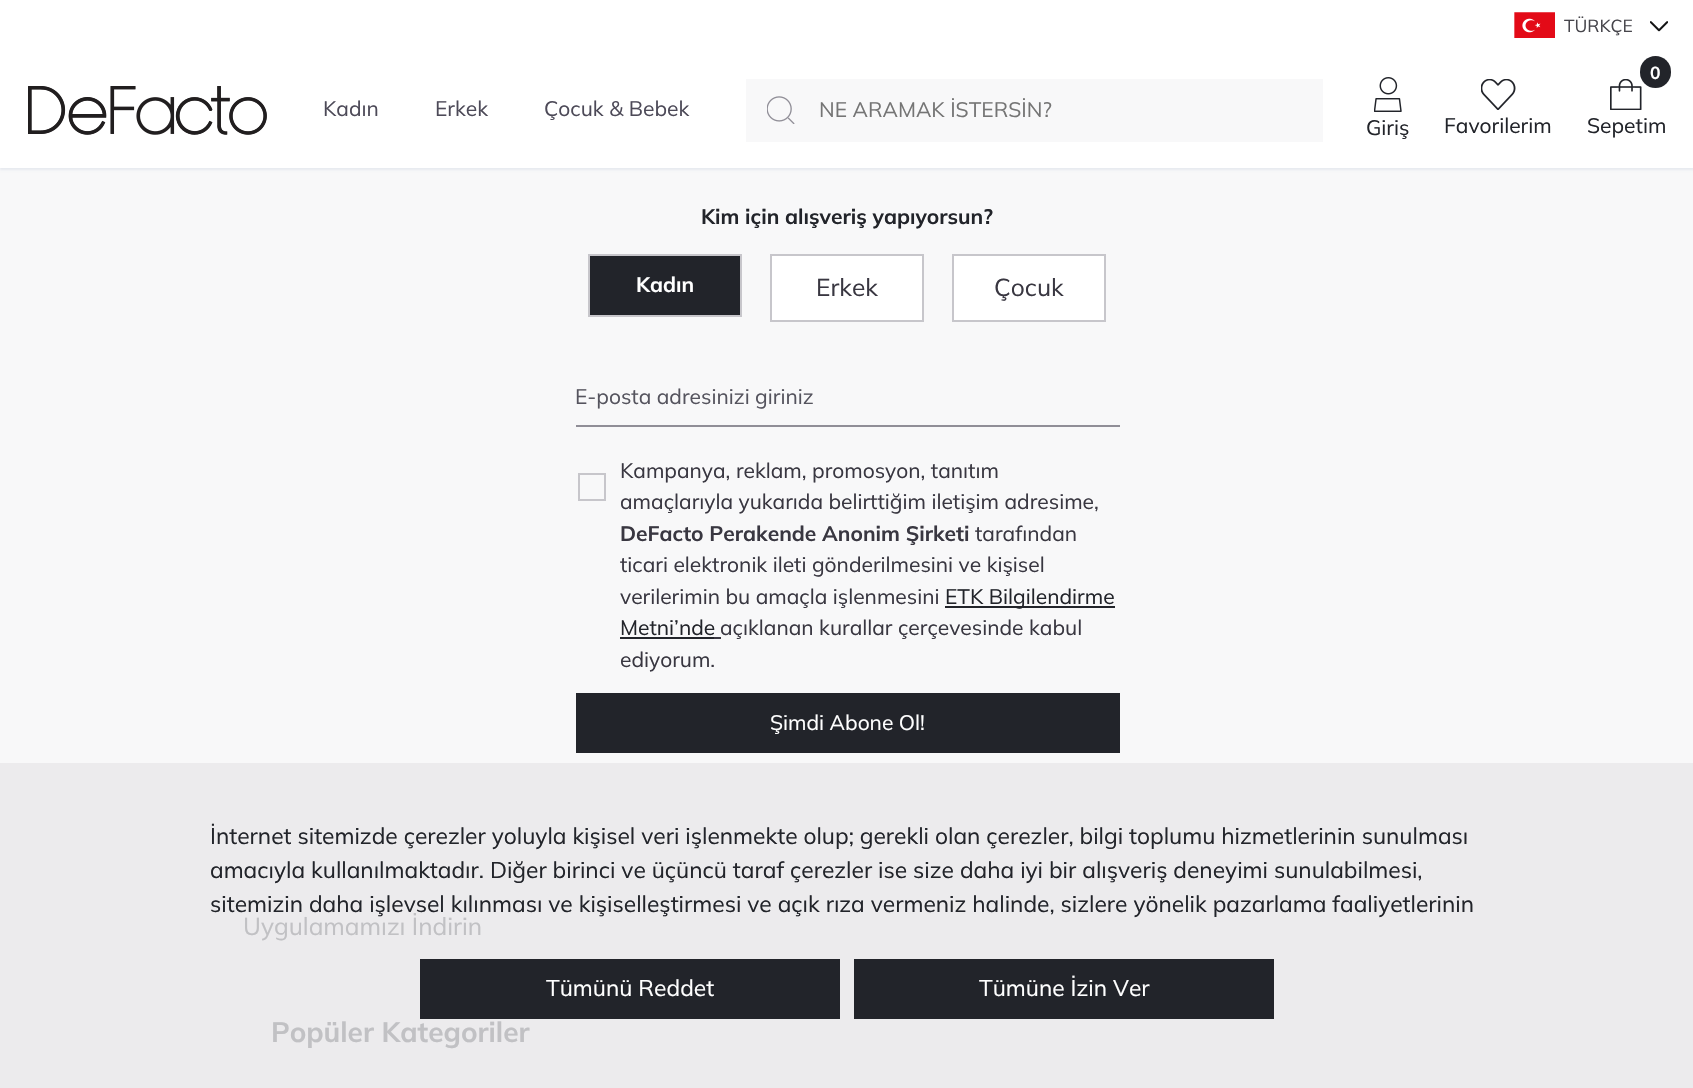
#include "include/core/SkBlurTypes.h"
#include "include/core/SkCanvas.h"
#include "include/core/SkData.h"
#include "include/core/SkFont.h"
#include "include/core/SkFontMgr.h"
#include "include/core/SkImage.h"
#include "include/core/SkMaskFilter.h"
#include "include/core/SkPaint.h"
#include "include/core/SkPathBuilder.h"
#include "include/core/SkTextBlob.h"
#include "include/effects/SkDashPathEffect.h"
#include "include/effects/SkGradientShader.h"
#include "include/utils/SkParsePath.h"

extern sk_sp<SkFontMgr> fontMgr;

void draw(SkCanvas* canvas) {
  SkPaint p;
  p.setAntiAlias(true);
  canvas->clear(SkColorSetRGB(248, 248, 249));
  p.setColor(SkColorSetRGB(231, 234, 240));
  p.setMaskFilter(SkMaskFilter::MakeBlur(kNormal_SkBlurStyle, 1));
  canvas->drawRect(SkRect::MakeLTRB(0, 2, 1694, 170), p);
  p.setMaskFilter(nullptr);
  p.setColor(SK_ColorWHITE);
  canvas->drawRect(SkRect::MakeLTRB(0, 0, 1693, 168), p);
  canvas->drawImageRect(SkImages::DeferredFromEncodedData(SkData::MakeFromFileName("images/1.png")), SkRect::MakeLTRB(1514, 12, 1555, 38), SkSamplingOptions());
  canvas->drawImageRect(SkImages::DeferredFromEncodedData(SkData::MakeFromFileName("images/2.png")), SkRect::MakeLTRB(1650, 21, 1668, 32), SkSamplingOptions());
  canvas->drawImageRect(SkImages::DeferredFromEncodedData(SkData::MakeFromFileName("images/3.png")), SkRect::MakeLTRB(28, 86, 267, 135), SkSamplingOptions());
  p.setColor(SkColorSetRGB(248, 248, 249));
  canvas->drawRect(SkRect::MakeLTRB(746, 79, 1323, 142), p);
  canvas->drawImageRect(SkImages::DeferredFromEncodedData(SkData::MakeFromFileName("images/4.png")), SkRect::MakeLTRB(767, 96, 795, 124), SkSamplingOptions());
  canvas->drawImageRect(SkImages::DeferredFromEncodedData(SkData::MakeFromFileName("images/5.png")), SkRect::MakeLTRB(1374, 77, 1402, 112), SkSamplingOptions());
  canvas->drawImageRect(SkImages::DeferredFromEncodedData(SkData::MakeFromFileName("images/6.png")), SkRect::MakeLTRB(1481, 79, 1516, 110), SkSamplingOptions());
  canvas->drawImageRect(SkImages::DeferredFromEncodedData(SkData::MakeFromFileName("images/7.png")), SkRect::MakeLTRB(1610, 79, 1642, 110), SkSamplingOptions());
  p.setColor(SkColorSetRGB(34, 36, 42));
  canvas->drawRoundRect(SkRect::MakeLTRB(1640, 56, 1671, 88), 15.5f, 15.5f, p);
  p.setColor(SkColorSetRGB(236, 235, 237));
  canvas->drawRect(SkRect::MakeLTRB(0, 763, 1693, 1088), p);
  p.setColor(SkColorSetRGB(34, 36, 42));
  canvas->drawRect(SkRect::MakeLTRB(589, 255, 741, 316), p);
  p.setStyle(SkPaint::kStroke_Style);
  p.setStrokeWidth(2);
  p.setColor(SkColorSetRGB(199, 198, 203));
  canvas->drawRect(SkRect::MakeLTRB(589, 255, 741, 316), p);
  p.setStyle(SkPaint::kFill_Style);
  p.setColor(SK_ColorWHITE);
  canvas->drawRect(SkRect::MakeLTRB(771, 255, 923, 321), p);
  p.setStyle(SkPaint::kStroke_Style);
  p.setColor(SkColorSetRGB(199, 198, 203));
  canvas->drawRect(SkRect::MakeLTRB(771, 255, 923, 321), p);
  p.setStyle(SkPaint::kFill_Style);
  p.setColor(SK_ColorWHITE);
  canvas->drawRect(SkRect::MakeLTRB(953, 255, 1105, 321), p);
  p.setStyle(SkPaint::kStroke_Style);
  p.setColor(SkColorSetRGB(199, 198, 203));
  canvas->drawRect(SkRect::MakeLTRB(953, 255, 1105, 321), p);
  p.setStyle(SkPaint::kFill_Style);
  p.setColor(SkColorSetRGB(144, 142, 151));
  canvas->drawRect(SkRect::MakeLTRB(576, 425, 1120, 427), p);
  p.setStyle(SkPaint::kStroke_Style);
  p.setColor(SkColorSetRGB(199, 198, 203));
  canvas->drawRect(SkRect::MakeLTRB(579, 474, 605, 500), p);
  p.setStyle(SkPaint::kFill_Style);
  p.setColor(SkColorSetRGB(34, 36, 42));
  canvas->drawRect(SkRect::MakeLTRB(945, 606, 1115, 608), p);
  canvas->drawRect(SkRect::MakeLTRB(620, 637, 714, 639), p);
  p.setColor(SkColorSetRGB(57, 55, 65));
  canvas->drawRect(SkRect::MakeLTRB(714, 637, 721, 639), p);
  p.setColor(SkColorSetRGB(34, 36, 42));
  canvas->drawRect(SkRect::MakeLTRB(576, 693, 1120, 753), p);
  canvas->drawRect(SkRect::MakeLTRB(420, 959, 840, 1019), p);
  canvas->drawRect(SkRect::MakeLTRB(854, 959, 1274, 1019), p);
  SkFont font1(fontMgr->matchFamilyStyle("Mulish", SkFontStyle(200, SkFontStyle::kNormal_Width, SkFontStyle::kUpright_Slant)), 17.5f);
  font1.setSubpixel(true);
  p.setColor(SkColorSetRGB(71, 70, 76));
  canvas->drawString("TÜRKÇE", 1564, 32, font1, p);
  SkFont font2(fontMgr->matchFamilyStyle("Mulish", SkFontStyle(200, SkFontStyle::kNormal_Width, SkFontStyle::kUpright_Slant)), 21);
  font2.setSubpixel(true);
  p.setColor(SkColorSetRGB(77, 74, 88));
  canvas->drawString("Kadın", 323, 116, font2, p);
  canvas->drawString("Erkek", 435, 116, font2, p);
  canvas->drawString("Çocuk & Bebek", 544, 116, font2, p);
  p.setColor(SkColorSetRGB(117, 117, 117));
  canvas->drawString("NE ARAMAK İSTERSİN?", 819, 117, font2, p);
  p.setColor(SkColorSetRGB(34, 36, 42));
  canvas->drawString("Giriş", 1366, 135, font2, p);
  canvas->drawString("Favorilerim", 1444, 133, font2, p);
  SkFont font3(fontMgr->matchFamilyStyle("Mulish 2", SkFontStyle(200, SkFontStyle::kNormal_Width, SkFontStyle::kUpright_Slant)), 17.5f);
  font3.setSubpixel(true);
  p.setColor(SK_ColorWHITE);
  canvas->drawString("0", 1650, 79, font3, p);
  p.setColor(SkColorSetRGB(34, 36, 42));
  canvas->drawString("Sepetim", 1587, 133, font2, p);
  SkFont font4(fontMgr->matchFamilyStyle("Mulish 2", SkFontStyle(200, SkFontStyle::kNormal_Width, SkFontStyle::kUpright_Slant)), 21);
  font4.setSubpixel(true);
  canvas->drawString("Kim için alışveriş yapıyorsun?", 701, 224, font4, p);
  p.setColor(SK_ColorWHITE);
  canvas->drawString("Kadın", 636, 292, font4, p);
  SkFont font5(fontMgr->matchFamilyStyle("Mulish", SkFontStyle(200, SkFontStyle::kNormal_Width, SkFontStyle::kUpright_Slant)), 24.5f);
  font5.setSubpixel(true);
  p.setColor(SkColorSetRGB(57, 55, 65));
  canvas->drawString("Erkek", 816, 296, font5, p);
  canvas->drawString("Çocuk", 994, 296, font5, p);
  p.setColor(SkColorSetRGB(85, 84, 94));
  canvas->drawString("E-posta adresinizi giriniz", 575, 404, font2, p);
  p.setColor(SkColorSetRGB(57, 55, 65));
  canvas->drawString("Kampanya, reklam, promosyon, tanıtım", 620, 478, font2, p);
  canvas->drawString("amaçlarıyla yukarıda belirttiğim iletişim adresime,", 620, 509, font2, p);
  canvas->drawString("DeFacto Perakende Anonim Şirketi", 620, 541, font4, p);
  canvas->drawString("tarafından", 975, 541, font2, p);
  canvas->drawString("ticari elektronik ileti gönderilmesini ve kişisel", 620, 572, font2, p);
  canvas->drawString("verilerimin bu amaçla işlenmesini", 620, 604, font2, p);
  p.setColor(SkColorSetRGB(34, 36, 42));
  canvas->drawString("ETK Bilgilendirme", 945, 604, font2, p);
  canvas->drawString("Metni’nde", 620, 635, font2, p);
  p.setColor(SkColorSetRGB(57, 55, 65));
  canvas->drawString("açıklanan kurallar çerçevesinde kabul", 720, 635, font2, p);
  canvas->drawString("ediyorum.", 620, 667, font2, p);
  p.setColor(SK_ColorWHITE);
  canvas->drawString("Şimdi Abone Ol!", 770, 730, font2, p);
  p.setColor(SkColorSetRGB(193, 193, 196));
  canvas->drawString("Uygulamamızı İndirin", 243, 935, font5, p);
  SkFont font6(fontMgr->matchFamilyStyle("Mulish 2", SkFontStyle(200, SkFontStyle::kNormal_Width, SkFontStyle::kUpright_Slant)), 28);
  font6.setSubpixel(true);
  canvas->drawString("Popüler Kategoriler", 271, 1042, font6, p);
  SkFont font7(fontMgr->matchFamilyStyle("Mulish", SkFontStyle(200, SkFontStyle::kNormal_Width, SkFontStyle::kUpright_Slant)), 22.75f);
  font7.setSubpixel(true);
  p.setColor(SkColorSetRGB(34, 36, 42));
  canvas->drawString("İnternet sitemizde çerezler yoluyla kişisel veri işlenmekte olup; gerekli olan çerezler, bilgi toplumu hizmetlerinin sunulması", 210, 844, font7, p);
  canvas->drawString("amacıyla kullanılmaktadır. Diğer birinci ve üçüncü taraf çerezler ise size daha iyi bir alışveriş deneyimi sunulabilmesi,", 210, 878, font7, p);
  canvas->drawString("sitemizin daha işlevsel kılınması ve kişiselleştirmesi ve açık rıza vermeniz halinde, sizlere yönelik pazarlama faaliyetlerinin", 210, 912, font7, p);
  p.setColor(SK_ColorWHITE);
  canvas->drawString("Tümünü Reddet", 546, 996, font7, p);
  canvas->drawString("Tümüne İzin Ver", 979, 996, font7, p);
}
